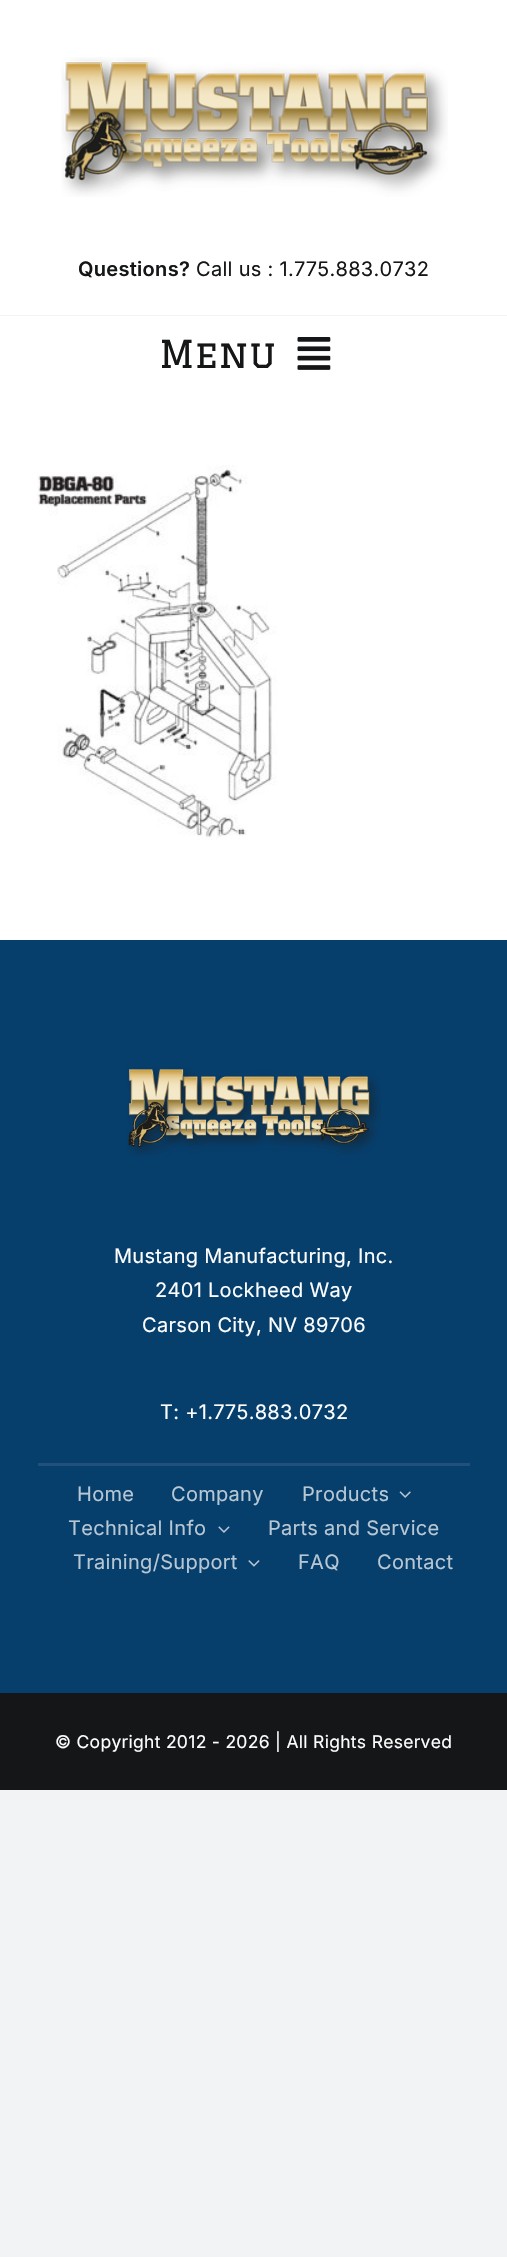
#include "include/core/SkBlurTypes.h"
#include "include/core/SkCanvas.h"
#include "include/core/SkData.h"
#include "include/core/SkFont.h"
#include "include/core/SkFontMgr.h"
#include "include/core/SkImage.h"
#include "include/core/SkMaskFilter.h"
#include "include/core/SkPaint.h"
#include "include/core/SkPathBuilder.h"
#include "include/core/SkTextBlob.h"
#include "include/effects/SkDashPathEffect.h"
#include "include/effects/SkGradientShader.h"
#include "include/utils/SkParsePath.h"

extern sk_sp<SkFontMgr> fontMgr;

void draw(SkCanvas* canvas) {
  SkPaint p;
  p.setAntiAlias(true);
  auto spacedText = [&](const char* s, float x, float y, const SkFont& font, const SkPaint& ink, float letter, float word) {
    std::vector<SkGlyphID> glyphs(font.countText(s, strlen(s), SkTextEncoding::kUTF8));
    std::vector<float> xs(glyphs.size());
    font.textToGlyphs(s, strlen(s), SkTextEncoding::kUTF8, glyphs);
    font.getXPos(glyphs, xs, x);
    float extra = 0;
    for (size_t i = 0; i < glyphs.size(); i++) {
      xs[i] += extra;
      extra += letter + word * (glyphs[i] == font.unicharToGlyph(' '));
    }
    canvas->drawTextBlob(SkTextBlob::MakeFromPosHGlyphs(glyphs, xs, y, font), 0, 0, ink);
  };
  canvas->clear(SkColorSetRGB(242, 243, 245));
  p.setColor(SK_ColorWHITE);
  canvas->drawRect(SkRect::MakeLTRB(0, 0, 507, 940), p);
  canvas->drawImageRect(SkImages::DeferredFromEncodedData(SkData::MakeFromFileName("images/1.png")), SkRect::MakeLTRB(61, 57, 448, 197), SkSamplingOptions());
  p.setColor(SkColorSetRGB(242, 243, 245));
  canvas->drawRect(SkRect::MakeLTRB(0, 315, 507, 316), p);
  canvas->drawImageRect(SkImages::DeferredFromEncodedData(SkData::MakeFromFileName("images/2.png")), SkRect::MakeLTRB(297, 337, 331, 370), SkSamplingOptions());
  canvas->drawImageRect(SkImages::DeferredFromEncodedData(SkData::MakeFromFileName("images/3.png")), SkRect::MakeLTRB(37, 465, 277, 840), SkSamplingOptions());
  p.setColor(SkColorSetRGB(6, 62, 108));
  canvas->drawRect(SkRect::MakeLTRB(0, 940, 507, 1693), p);
  canvas->drawImageRect(SkImages::DeferredFromEncodedData(SkData::MakeFromFileName("images/4.png")), SkRect::MakeLTRB(127, 1067, 381, 1156), SkSamplingOptions());
  p.setColor(SkColorSetRGB(31, 81, 123));
  canvas->drawRect(SkRect::MakeLTRB(38, 1463, 470, 1466), p);
  canvas->drawImageRect(SkImages::DeferredFromEncodedData(SkData::MakeFromFileName("images/5.png")), SkRect::MakeLTRB(399, 1491, 411, 1498), SkSamplingOptions());
  canvas->drawImageRect(SkImages::DeferredFromEncodedData(SkData::MakeFromFileName("images/6.png")), SkRect::MakeLTRB(218, 1526, 230, 1533), SkSamplingOptions());
  canvas->drawImageRect(SkImages::DeferredFromEncodedData(SkData::MakeFromFileName("images/7.png")), SkRect::MakeLTRB(248, 1560, 260, 1567), SkSamplingOptions());
  p.setColor(SkColorSetRGB(20, 22, 23));
  canvas->drawRect(SkRect::MakeLTRB(0, 1693, 507, 1790), p);
  SkFont font1(fontMgr->matchFamilyStyle("Inter", SkFontStyle(600, SkFontStyle::kNormal_Width, SkFontStyle::kUpright_Slant)), 20);
  font1.setSubpixel(true);
  spacedText("Questions?", 78, 276, font1, p, 0.3f, 0);
  SkFont font2(fontMgr->matchFamilyStyle("Inter", SkFontStyle::Normal()), 20);
  font2.setSubpixel(true);
  spacedText("Call us : 1.775.883.0732", 196, 276, font2, p, 0.3f, 0);
  SkFont font3(fontMgr->matchFamilyStyle("Graduate", SkFontStyle::Normal()), 37.5f);
  font3.setSubpixel(true);
  canvas->drawString("Menu", 159, 368, font3, p);
  p.setColor(SK_ColorWHITE);
  spacedText("Mustang Manufacturing, Inc.", 114, 1263, font2, p, 0.3f, 0);
  spacedText("2401 Lockheed Way", 155, 1297, font2, p, 0.3f, 0);
  spacedText("Carson City, NV 89706", 142, 1332, font2, p, 0.3f, 0);
  spacedText("T: +1.775.883.0732", 160, 1419, font2, p, 0.3f, 0);
  p.setColor(SkColorSetRGB(183, 199, 212));
  spacedText("Home", 77, 1501, font2, p, 0.3f, 0);
  spacedText("Company", 171, 1501, font2, p, 0.3f, 0);
  spacedText("Products", 302, 1501, font2, p, 0.3f, 0);
  spacedText("Technical Info", 68, 1535, font2, p, 0.3f, 0);
  spacedText("Parts and Service", 268, 1535, font2, p, 0.3f, 0);
  spacedText("Training/Support", 73, 1569, font2, p, 0.3f, 0);
  spacedText("FAQ", 298, 1569, font2, p, 0.3f, 0);
  spacedText("Contact", 377, 1569, font2, p, 0.3f, 0);
  SkFont font4(fontMgr->matchFamilyStyle("Inter", SkFontStyle::Normal()), 17.5f);
  font4.setSubpixel(true);
  p.setColor(SK_ColorWHITE);
  spacedText("© Copyright 2012 - 2026 | All Rights Reserved", 55, 1748, font4, p, 0.3f, 0);
}
